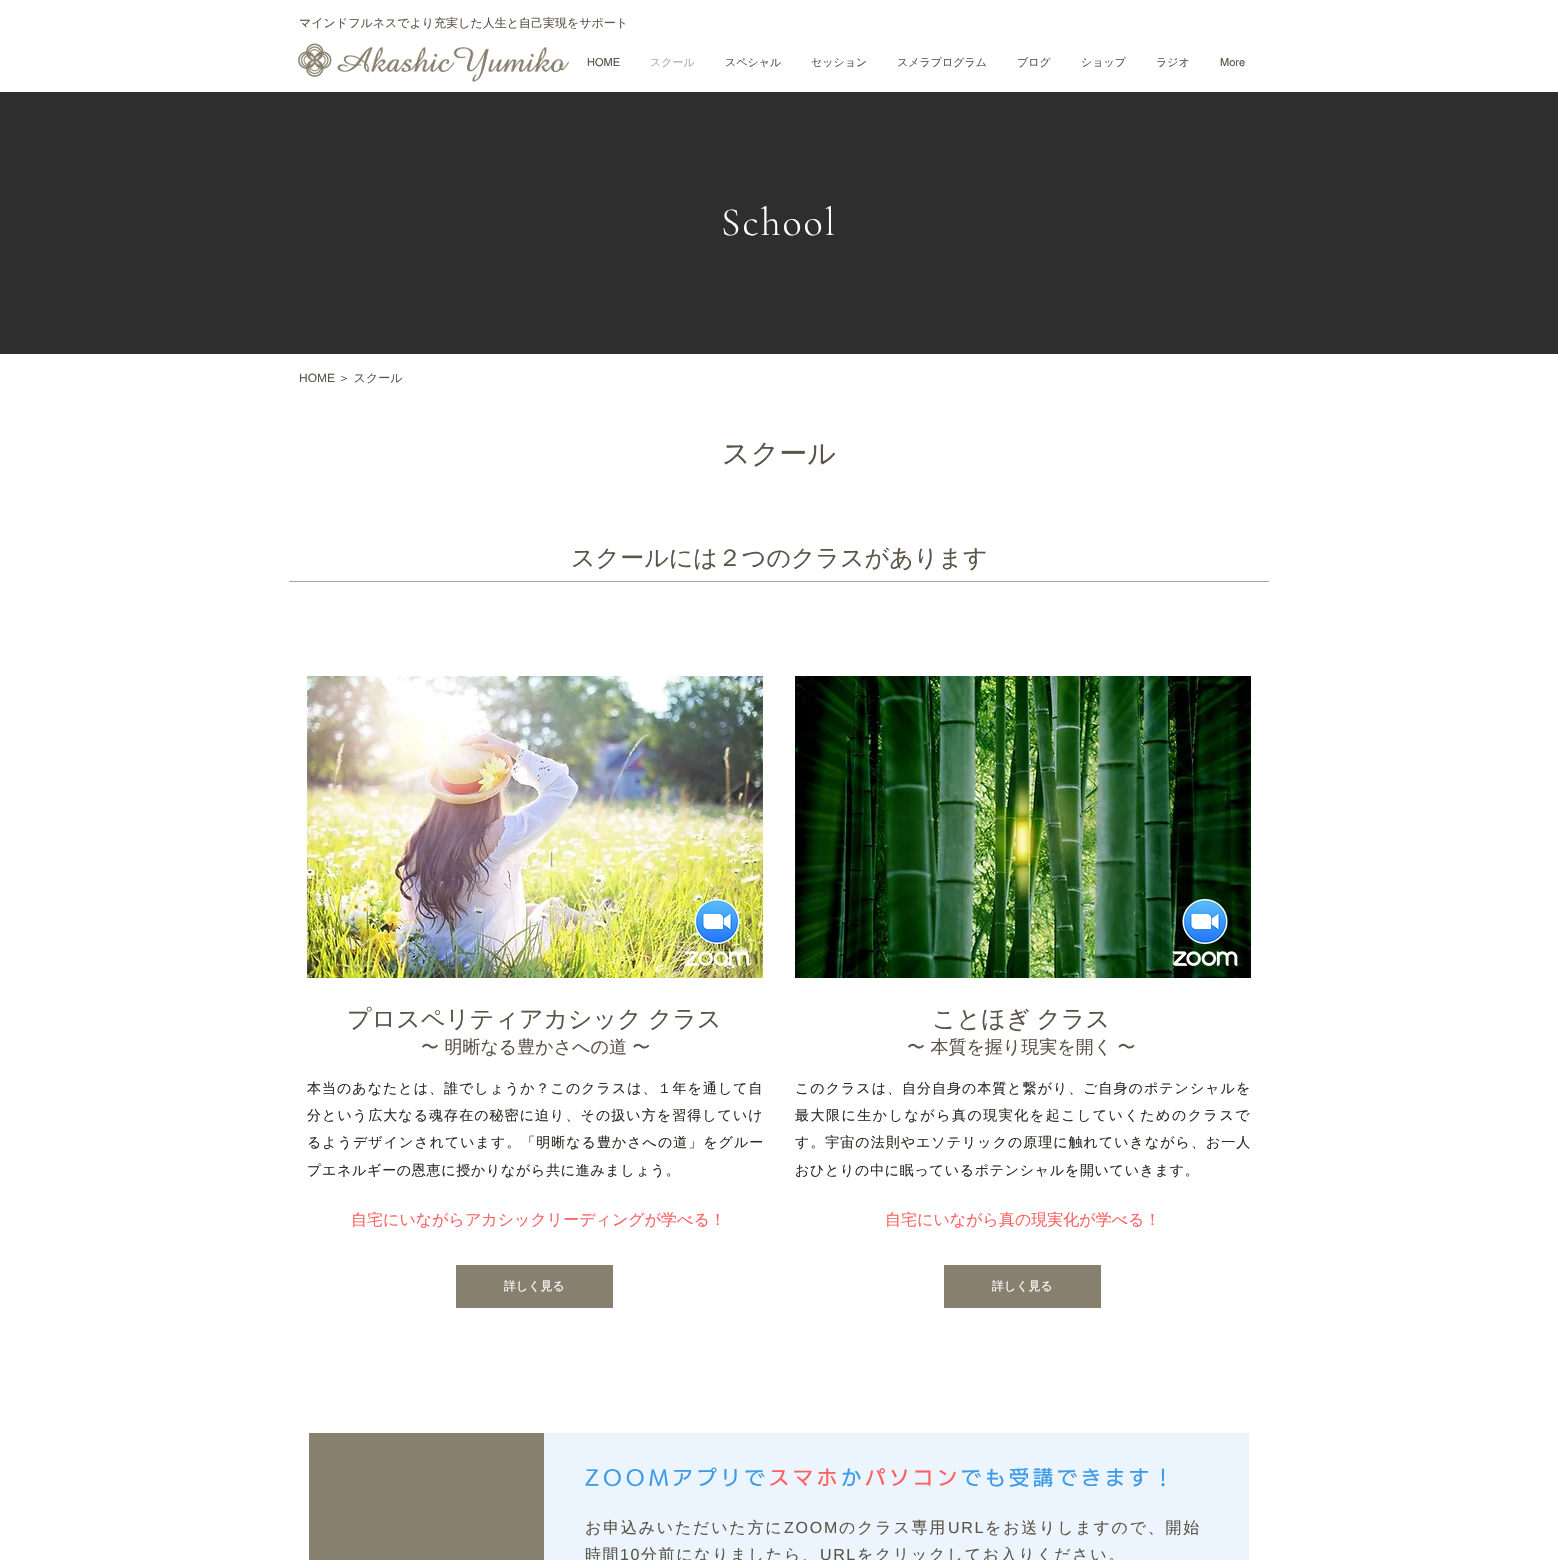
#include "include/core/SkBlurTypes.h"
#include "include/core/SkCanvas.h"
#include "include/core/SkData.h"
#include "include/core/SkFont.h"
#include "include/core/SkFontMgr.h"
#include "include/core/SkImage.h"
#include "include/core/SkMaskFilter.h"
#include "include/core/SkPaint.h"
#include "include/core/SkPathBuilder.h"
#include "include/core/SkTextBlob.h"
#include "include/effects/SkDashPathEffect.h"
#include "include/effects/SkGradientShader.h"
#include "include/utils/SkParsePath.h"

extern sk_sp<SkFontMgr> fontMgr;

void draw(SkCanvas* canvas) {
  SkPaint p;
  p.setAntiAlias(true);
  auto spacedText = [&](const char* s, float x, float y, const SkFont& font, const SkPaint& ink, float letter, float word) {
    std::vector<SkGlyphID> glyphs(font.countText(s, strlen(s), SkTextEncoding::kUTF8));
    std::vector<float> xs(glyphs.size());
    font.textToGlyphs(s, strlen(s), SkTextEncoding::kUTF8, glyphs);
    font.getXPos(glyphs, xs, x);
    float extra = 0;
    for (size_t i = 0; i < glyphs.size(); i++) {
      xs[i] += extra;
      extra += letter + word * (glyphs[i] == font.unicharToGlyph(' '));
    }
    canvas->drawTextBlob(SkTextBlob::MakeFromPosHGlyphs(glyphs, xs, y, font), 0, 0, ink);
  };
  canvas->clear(SK_ColorWHITE);
  canvas->drawImageRect(SkImages::DeferredFromEncodedData(SkData::MakeFromFileName("images/1.png")), SkRect::MakeLTRB(297, 43, 570, 82), SkSamplingOptions());
  p.setColor(SkColorSetRGB(47, 46, 46));
  canvas->drawRect(SkRect::MakeLTRB(0, 92, 1558, 354), p);
  p.setColor(SkColorSetRGB(166, 166, 166));
  canvas->drawRect(SkRect::MakeLTRB(289, 581, 1269, 582), p);
  canvas->drawImageRect(SkImages::DeferredFromEncodedData(SkData::MakeFromFileName("images/2.png")), SkRect::MakeLTRB(307, 676, 763, 978), SkSamplingOptions());
  canvas->drawImageRect(SkImages::DeferredFromEncodedData(SkData::MakeFromFileName("images/3.png")), SkRect::MakeLTRB(795, 676, 1251, 978), SkSamplingOptions());
  canvas->drawImageRect(SkImages::DeferredFromEncodedData(SkData::MakeFromFileName("images/4.png")), SkRect::MakeLTRB(694, 898, 740, 945), SkSamplingOptions());
  canvas->drawImageRect(SkImages::DeferredFromEncodedData(SkData::MakeFromFileName("images/5.png")), SkRect::MakeLTRB(684, 951, 750, 967), SkSamplingOptions());
  canvas->drawImageRect(SkImages::DeferredFromEncodedData(SkData::MakeFromFileName("images/6.png")), SkRect::MakeLTRB(1182, 898, 1228, 945), SkSamplingOptions());
  canvas->drawImageRect(SkImages::DeferredFromEncodedData(SkData::MakeFromFileName("images/7.png")), SkRect::MakeLTRB(1172, 951, 1238, 967), SkSamplingOptions());
  p.setColor(SkColorSetRGB(136, 128, 110));
  canvas->drawRect(SkRect::MakeLTRB(456, 1265, 613, 1308), p);
  canvas->drawRect(SkRect::MakeLTRB(944, 1265, 1101, 1308), p);
  canvas->drawRect(SkRect::MakeLTRB(309, 1433, 544, 1560), p);
  p.setColor(SkColorSetRGB(236, 245, 253));
  canvas->drawRect(SkRect::MakeLTRB(544, 1433, 1249, 1560), p);
  SkFont font1(fontMgr->matchFamilyStyle("WenQuanYi Zen Hei", SkFontStyle(500, SkFontStyle::kNormal_Width, SkFontStyle::kUpright_Slant)), 12);
  font1.setSubpixel(true);
  p.setColor(SkColorSetRGB(91, 85, 73));
  canvas->drawString("マインドフルネスでより充実した人生と自己実現をサポート", 299, 27, font1, p);
  SkFont font2(fontMgr->matchFamilyStyle("helvetica", SkFontStyle::Normal()), 11);
  font2.setSubpixel(true);
  canvas->drawString("HOME", 587, 66, font2, p);
  SkFont font3(fontMgr->matchFamilyStyle("WenQuanYi Zen Hei", SkFontStyle(500, SkFontStyle::kNormal_Width, SkFontStyle::kUpright_Slant)), 11);
  font3.setSubpixel(true);
  p.setColor(SkColorSetRGB(176, 171, 159));
  canvas->drawString("スクール", 650, 66, font3, p);
  p.setColor(SkColorSetRGB(91, 85, 73));
  canvas->drawString("スペシャル", 725, 66, font3, p);
  canvas->drawString("セッション", 811, 66, font3, p);
  canvas->drawString("スメラプログラム", 897, 66, font3, p);
  canvas->drawString("ブログ", 1017, 66, font3, p);
  canvas->drawString("ショップ", 1081, 66, font3, p);
  canvas->drawString("ラジオ", 1156, 66, font3, p);
  canvas->drawString("More", 1220, 66, font2, p);
  SkFont font4(fontMgr->matchFamilyStyle("Cormorant Garamond", SkFontStyle(300, SkFontStyle::kNormal_Width, SkFontStyle::kUpright_Slant)), 40);
  font4.setSubpixel(true);
  p.setColor(SK_ColorWHITE);
  spacedText("School", 721, 235, font4, p, 2, 0);
  SkFont font5(fontMgr->matchFamilyStyle("Liberation Sans", SkFontStyle::Normal()), 12);
  font5.setSubpixel(true);
  p.setColor(SkColorSetRGB(91, 85, 73));
  canvas->drawString("HOME", 299, 382, font5, p);
  canvas->drawString("＞ スクール", 338, 382, font1, p);
  SkFont font6(fontMgr->matchFamilyStyle("WenQuanYi Zen Hei", SkFontStyle(500, SkFontStyle::kNormal_Width, SkFontStyle::kUpright_Slant)), 28);
  font6.setSubpixel(true);
  canvas->drawString("スクール", 722, 463, font6, p);
  SkFont font7(fontMgr->matchFamilyStyle("WenQuanYi Zen Hei", SkFontStyle(500, SkFontStyle::kNormal_Width, SkFontStyle::kUpright_Slant)), 24);
  font7.setSubpixel(true);
  canvas->drawString("スクールには２つのクラスがあります", 571, 566, font7, p);
  spacedText("プロスペリティアカシック クラス", 347, 1027, font7, p, 0, -1);
  SkFont font8(fontMgr->matchFamilyStyle("WenQuanYi Zen Hei", SkFontStyle(500, SkFontStyle::kNormal_Width, SkFontStyle::kUpright_Slant)), 18);
  font8.setSubpixel(true);
  canvas->drawString("〜 明晰なる豊かさへの道 〜", 421, 1053, font8, p);
  spacedText("ことほぎ クラス", 932, 1027, font7, p, 0, -1);
  canvas->drawString("〜 本質を握り現実を開く 〜", 907, 1053, font8, p);
  SkFont font9(fontMgr->matchFamilyStyle("WenQuanYi Zen Hei", SkFontStyle(500, SkFontStyle::kNormal_Width, SkFontStyle::kUpright_Slant)), 14);
  font9.setSubpixel(true);
  p.setColor(SkColorSetRGB(45, 43, 37));
  spacedText("本当のあなたとは、誰でしょうか？このクラスは、１年を通して自", 307, 1093, font9, p, 1, 0);
  spacedText("分という広大なる魂存在の秘密に迫り、その扱い方を習得していけ", 307, 1120, font9, p, 1.05f, 0);
  spacedText("るようデザインされています。「明晰なる豊かさへの道」をグルー", 307, 1147, font9, p, 1, 0);
  spacedText("プエネルギーの恩恵に授かりながら共に進みましょう。", 307, 1175, font9, p, 0.7f, 0);
  spacedText("このクラスは、自分自身の本質と繋がり、ご自身のポテンシャルを", 795, 1093, font9, p, 1, 0);
  spacedText("最大限に生かしながら真の現実化を起こしていくためのクラスで", 795, 1120, font9, p, 1.5f, 0);
  spacedText("す。宇宙の法則やエソテリックの原理に触れていきながら、お一人", 795, 1147, font9, p, 1, 0);
  spacedText("おひとりの中に眠っているポテンシャルを開いていきます。", 795, 1175, font9, p, 0.7f, 0);
  SkFont font10(fontMgr->matchFamilyStyle("WenQuanYi Zen Hei", SkFontStyle(500, SkFontStyle::kNormal_Width, SkFontStyle::kUpright_Slant)), 16);
  font10.setSubpixel(true);
  p.setColor(SkColorSetRGB(255, 97, 97));
  canvas->drawString("自宅にいながらアカシックリーディングが学べる！", 351, 1225, font10, p);
  canvas->drawString("自宅にいながら真の現実化が学べる！", 885, 1225, font10, p);
  p.setColor(SK_ColorWHITE);
  canvas->drawString("詳しく見る", 504, 1290, font1, p);
  canvas->drawString("詳しく見る", 992, 1290, font1, p);
  SkFont font11(fontMgr->matchFamilyStyle("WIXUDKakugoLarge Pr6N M", SkFontStyle(500, SkFontStyle::kNormal_Width, SkFontStyle::kUpright_Slant)), 20);
  font11.setSubpixel(true);
  p.setColor(SkColorSetRGB(61, 155, 233));
  spacedText("ZOOMアプリで", 585, 1485, font11, p, 4, 0);
  p.setColor(SkColorSetRGB(255, 97, 97));
  spacedText("スマホ", 769, 1485, font11, p, 4, 0);
  p.setColor(SkColorSetRGB(61, 155, 233));
  spacedText("か", 841, 1485, font11, p, 4, 0);
  p.setColor(SkColorSetRGB(255, 97, 97));
  spacedText("パソコン", 865, 1485, font11, p, 4, 0);
  p.setColor(SkColorSetRGB(61, 155, 233));
  spacedText("でも受講できます！", 961, 1485, font11, p, 4, 0);
  p.setColor(SkColorSetRGB(91, 85, 73));
  spacedText("お申込みいただいた方に", 585, 1533, font10, p, 1.75f, 0);
  SkFont font12(fontMgr->matchFamilyStyle("Liberation Sans", SkFontStyle::Normal()), 16);
  font12.setSubpixel(true);
  spacedText("ZOOM", 784, 1533, font12, p, 1.75f, 0);
  spacedText("のクラス専用", 839, 1533, font10, p, 1.75f, 0);
  spacedText("URL", 948, 1533, font12, p, 1.75f, 0);
  spacedText("をお送りしますので、開始", 985, 1533, font10, p, 1.75f, 0);
  spacedText("時間", 585, 1560, font10, p, 1.6f, 0);
  spacedText("10", 620, 1560, font12, p, 1.6f, 0);
  spacedText("分前になりましたら、", 641, 1560, font10, p, 1.6f, 0);
  spacedText("URL", 820, 1560, font12, p, 1.6f, 0);
  spacedText("をクリックしてお入りください。", 857, 1560, font10, p, 1.6f, 0);
}
